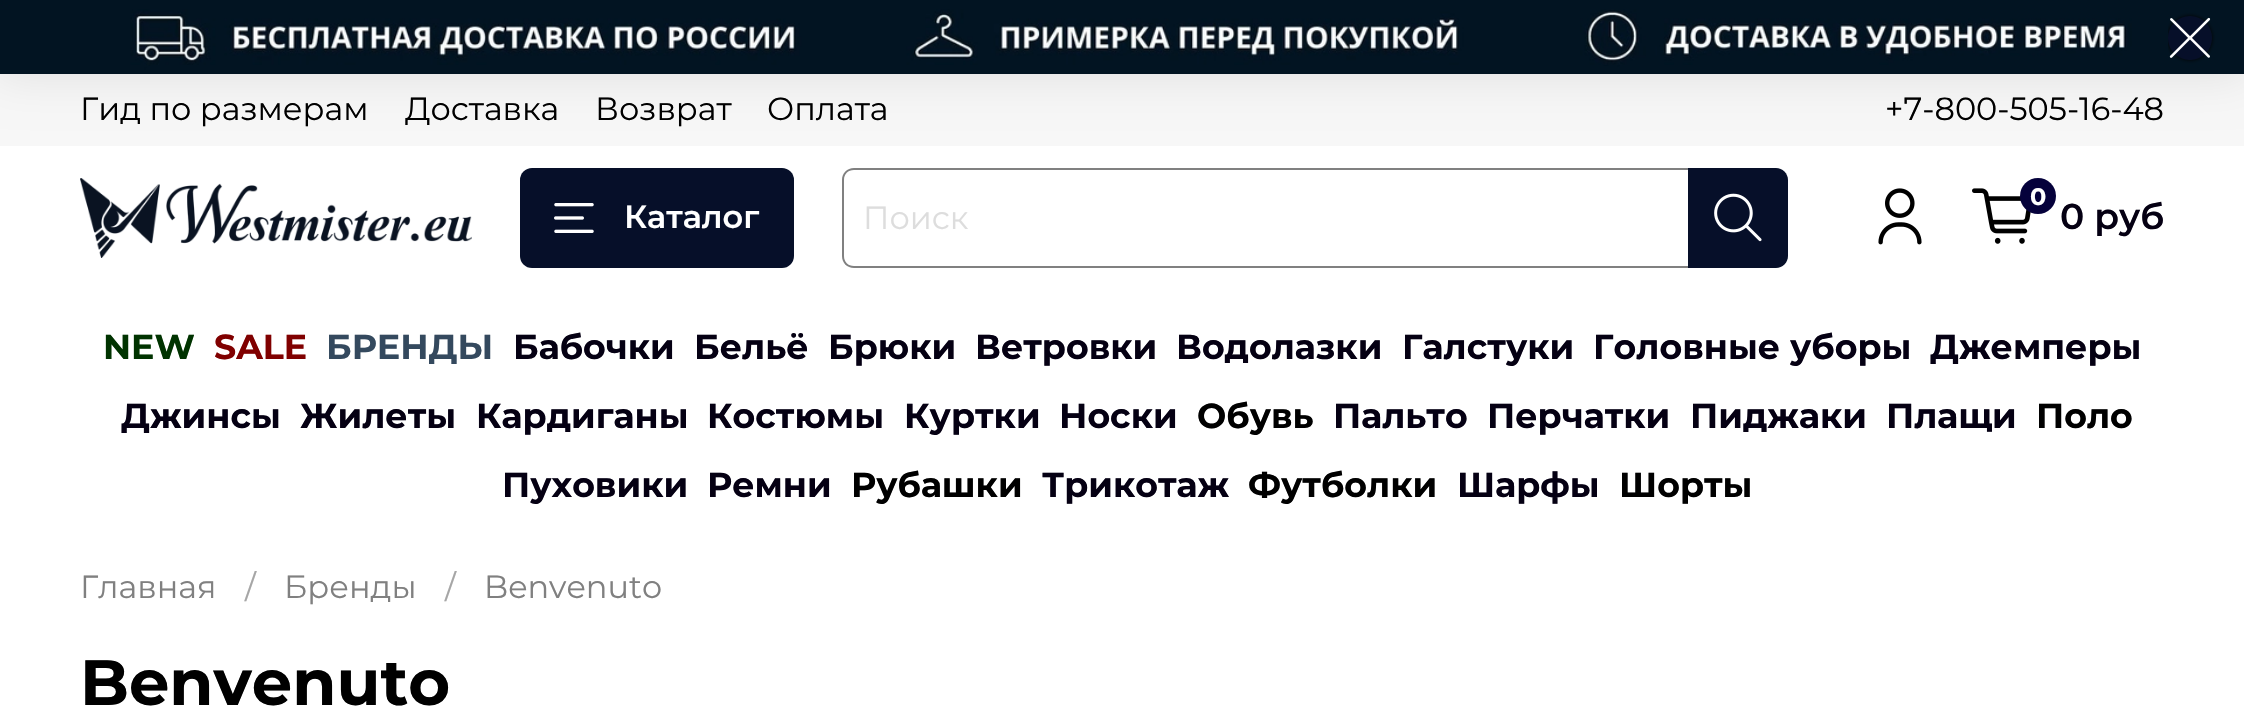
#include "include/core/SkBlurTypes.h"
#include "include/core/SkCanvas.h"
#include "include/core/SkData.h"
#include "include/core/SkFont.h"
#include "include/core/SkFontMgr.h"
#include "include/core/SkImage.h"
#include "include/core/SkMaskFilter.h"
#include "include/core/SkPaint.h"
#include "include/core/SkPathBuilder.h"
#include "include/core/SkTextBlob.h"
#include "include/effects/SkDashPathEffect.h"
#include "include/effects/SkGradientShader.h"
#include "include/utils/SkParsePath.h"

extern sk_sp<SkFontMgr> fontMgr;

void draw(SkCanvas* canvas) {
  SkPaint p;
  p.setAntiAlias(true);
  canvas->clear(SK_ColorWHITE);
  p.setColor(SkColorSetRGB(247, 247, 247));
  canvas->drawRect(SkRect::MakeLTRB(0, 74, 2244, 146), p);
  p.setColor(SkColorSetARGB(23, 0, 0, 0));
  p.setMaskFilter(SkMaskFilter::MakeBlur(kNormal_SkBlurStyle, 23));
  canvas->drawRect(SkRect::MakeLTRB(-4, -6, 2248, 76), p);
  p.setMaskFilter(nullptr);
  canvas->drawImageRect(SkImages::DeferredFromEncodedData(SkData::MakeFromFileName("images/1.png")), SkRect::MakeLTRB(0, 0, 2244, 74), SkSamplingOptions());
  canvas->save();
  canvas->clipRect(SkRect::MakeLTRB(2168, 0, 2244, 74));
  p.setColor(SK_ColorBLACK);
  p.setMaskFilter(SkMaskFilter::MakeBlur(kNormal_SkBlurStyle, 2));
  canvas->drawRoundRect(SkRect::MakeLTRB(2168, 16, 2212, 60), 22, 22, p);
  p.setMaskFilter(nullptr);
  canvas->restore();
  p.setColor(SkColorSetRGB(6, 15, 41));
  canvas->drawCircle(2190, 38, 22, p);
  canvas->drawImageRect(SkImages::DeferredFromEncodedData(SkData::MakeFromFileName("images/2.png")), SkRect::MakeLTRB(2169, 17, 2211, 58), SkSamplingOptions());
  canvas->drawImageRect(SkImages::DeferredFromEncodedData(SkData::MakeFromFileName("images/3.png")), SkRect::MakeLTRB(80, 178, 472, 258), SkSamplingOptions());
  canvas->drawRoundRect(SkRect::MakeLTRB(520, 168, 794, 268), 12, 12, p);
  canvas->drawImageRect(SkImages::DeferredFromEncodedData(SkData::MakeFromFileName("images/4.png")), SkRect::MakeLTRB(554, 203, 594, 233), SkSamplingOptions());
  p.setColor(SkColorSetRGB(128, 128, 128));
  canvas->drawPath(SkPathBuilder(SkPathFillType::kEvenOdd).moveTo(854, 168).lineTo(1688, 168).lineTo(1688, 268).lineTo(854, 268).cubicTo(847, 268, 842, 263, 842, 256).lineTo(842, 180).cubicTo(842, 173, 847, 168, 854, 168).close().moveTo(854, 170).lineTo(1688, 170).lineTo(1688, 266).lineTo(854, 266).cubicTo(848, 266, 844, 262, 844, 256).lineTo(844, 180).cubicTo(844, 174, 848, 170, 854, 170).close().detach(), p);
  p.setColor(SkColorSetRGB(6, 15, 41));
  canvas->drawPath(SkPathBuilder().moveTo(1688, 168).lineTo(1776, 168).cubicTo(1782.5f, 168, 1788, 173.5f, 1788, 180).lineTo(1788, 256).cubicTo(1788, 262.5f, 1782.5f, 268, 1776, 268).lineTo(1688, 268).close().detach(), p);
  canvas->drawImageRect(SkImages::DeferredFromEncodedData(SkData::MakeFromFileName("images/5.png")), SkRect::MakeLTRB(1714, 193, 1762, 242), SkSamplingOptions());
  canvas->drawImageRect(SkImages::DeferredFromEncodedData(SkData::MakeFromFileName("images/6.png")), SkRect::MakeLTRB(1878, 188, 1922, 245), SkSamplingOptions());
  canvas->drawImageRect(SkImages::DeferredFromEncodedData(SkData::MakeFromFileName("images/7.png")), SkRect::MakeLTRB(1972, 188, 2031, 244), SkSamplingOptions());
  p.setColor(SkColorSetRGB(5, 1, 59));
  canvas->drawCircle(2038, 196, 18, p);
  SkFont font1(fontMgr->matchFamilyStyle("Montserrat", SkFontStyle::Normal()), 32);
  font1.setSubpixel(true);
  p.setColor(SK_ColorBLACK);
  canvas->drawString("Гид по размерам", 80, 120, font1, p);
  canvas->drawString("Доставка", 405, 120, font1, p);
  canvas->drawString("Возврат", 595, 120, font1, p);
  canvas->drawString("Оплата", 767, 120, font1, p);
  canvas->drawString("+7-800-505-16-48", 1885, 120, font1, p);
  SkFont font2(fontMgr->matchFamilyStyle("Montserrat", SkFontStyle(600, SkFontStyle::kNormal_Width, SkFontStyle::kUpright_Slant)), 32);
  font2.setSubpixel(true);
  p.setColor(SK_ColorWHITE);
  canvas->drawString("Каталог", 624, 228, font2, p);
  p.setColor(SkColorSetRGB(221, 221, 221));
  canvas->drawString("Поиск", 863, 229, font1, p);
  SkFont font3(fontMgr->matchFamilyStyle("Montserrat", SkFontStyle::Bold()), 24);
  font3.setSubpixel(true);
  p.setColor(SK_ColorWHITE);
  canvas->drawString("0", 2030, 205, font3, p);
  SkFont font4(fontMgr->matchFamilyStyle("Montserrat", SkFontStyle(600, SkFontStyle::kNormal_Width, SkFontStyle::kUpright_Slant)), 36);
  font4.setSubpixel(true);
  p.setColor(SkColorSetRGB(5, 0, 19));
  canvas->drawString("0 руб", 2060, 229, font4, p);
  SkFont font5(fontMgr->matchFamilyStyle("Montserrat", SkFontStyle::Bold()), 34.75f);
  font5.setSubpixel(true);
  p.setColor(SkColorSetRGB(0, 51, 0));
  canvas->drawString("NEW", 103, 359, font5, p);
  p.setColor(SkColorSetRGB(128, 0, 0));
  canvas->drawString("SALE", 214, 359, font5, p);
  p.setColor(SkColorSetRGB(52, 73, 94));
  canvas->drawString("БРЕНДЫ", 326, 359, font5, p);
  p.setColor(SkColorSetRGB(5, 0, 19));
  canvas->drawString("Бабочки", 513, 359, font5, p);
  canvas->drawString("Бельё", 694, 359, font5, p);
  canvas->drawString("Брюки", 828, 359, font5, p);
  canvas->drawString("Ветровки", 975, 359, font5, p);
  canvas->drawString("Водолазки", 1176, 359, font5, p);
  canvas->drawString("Галстуки", 1402, 359, font5, p);
  canvas->drawString("Головные уборы", 1593, 359, font5, p);
  canvas->drawString("Джемперы", 1930, 359, font5, p);
  canvas->drawString("Джинсы", 121, 428, font5, p);
  canvas->drawString("Жилеты", 300, 428, font5, p);
  canvas->drawString("Кардиганы", 476, 428, font5, p);
  canvas->drawString("Костюмы", 707, 428, font5, p);
  canvas->drawString("Куртки", 904, 428, font5, p);
  canvas->drawString("Носки", 1059, 428, font5, p);
  p.setColor(SK_ColorBLACK);
  canvas->drawString("Обувь", 1197, 428, font5, p);
  p.setColor(SkColorSetRGB(5, 0, 19));
  canvas->drawString("Пальто", 1333, 428, font5, p);
  canvas->drawString("Перчатки", 1487, 428, font5, p);
  canvas->drawString("Пиджаки", 1690, 428, font5, p);
  canvas->drawString("Плащи", 1886, 428, font5, p);
  p.setColor(SK_ColorBLACK);
  canvas->drawString("Поло", 2036, 428, font5, p);
  p.setColor(SkColorSetRGB(5, 0, 19));
  canvas->drawString("Пуховики", 502, 497, font5, p);
  canvas->drawString("Ремни", 707, 497, font5, p);
  p.setColor(SK_ColorBLACK);
  canvas->drawString("Рубашки", 851, 497, font5, p);
  p.setColor(SkColorSetRGB(5, 0, 19));
  canvas->drawString("Трикотаж", 1042, 497, font5, p);
  p.setColor(SK_ColorBLACK);
  canvas->drawString("Футболки", 1248, 497, font5, p);
  p.setColor(SkColorSetRGB(5, 0, 19));
  canvas->drawString("Шарфы", 1457, 497, font5, p);
  p.setColor(SK_ColorBLACK);
  canvas->drawString("Шорты", 1619, 497, font5, p);
  p.setColor(SkColorSetRGB(128, 128, 128));
  canvas->drawString("Главная", 80, 598, font1, p);
  p.setColor(SkColorSetRGB(166, 166, 166));
  canvas->drawString("/", 245, 598, font1, p);
  p.setColor(SkColorSetRGB(128, 128, 128));
  canvas->drawString("Бренды", 284, 598, font1, p);
  p.setColor(SkColorSetRGB(166, 166, 166));
  canvas->drawString("/", 445, 598, font1, p);
  p.setColor(SkColorSetRGB(128, 128, 128));
  canvas->drawString("Benvenuto", 484, 598, font1, p);
  SkFont font6(fontMgr->matchFamilyStyle("Montserrat", SkFontStyle::Bold()), 64);
  font6.setSubpixel(true);
  p.setColor(SK_ColorBLACK);
  canvas->drawString("Benvenuto", 80, 705, font6, p);
}
